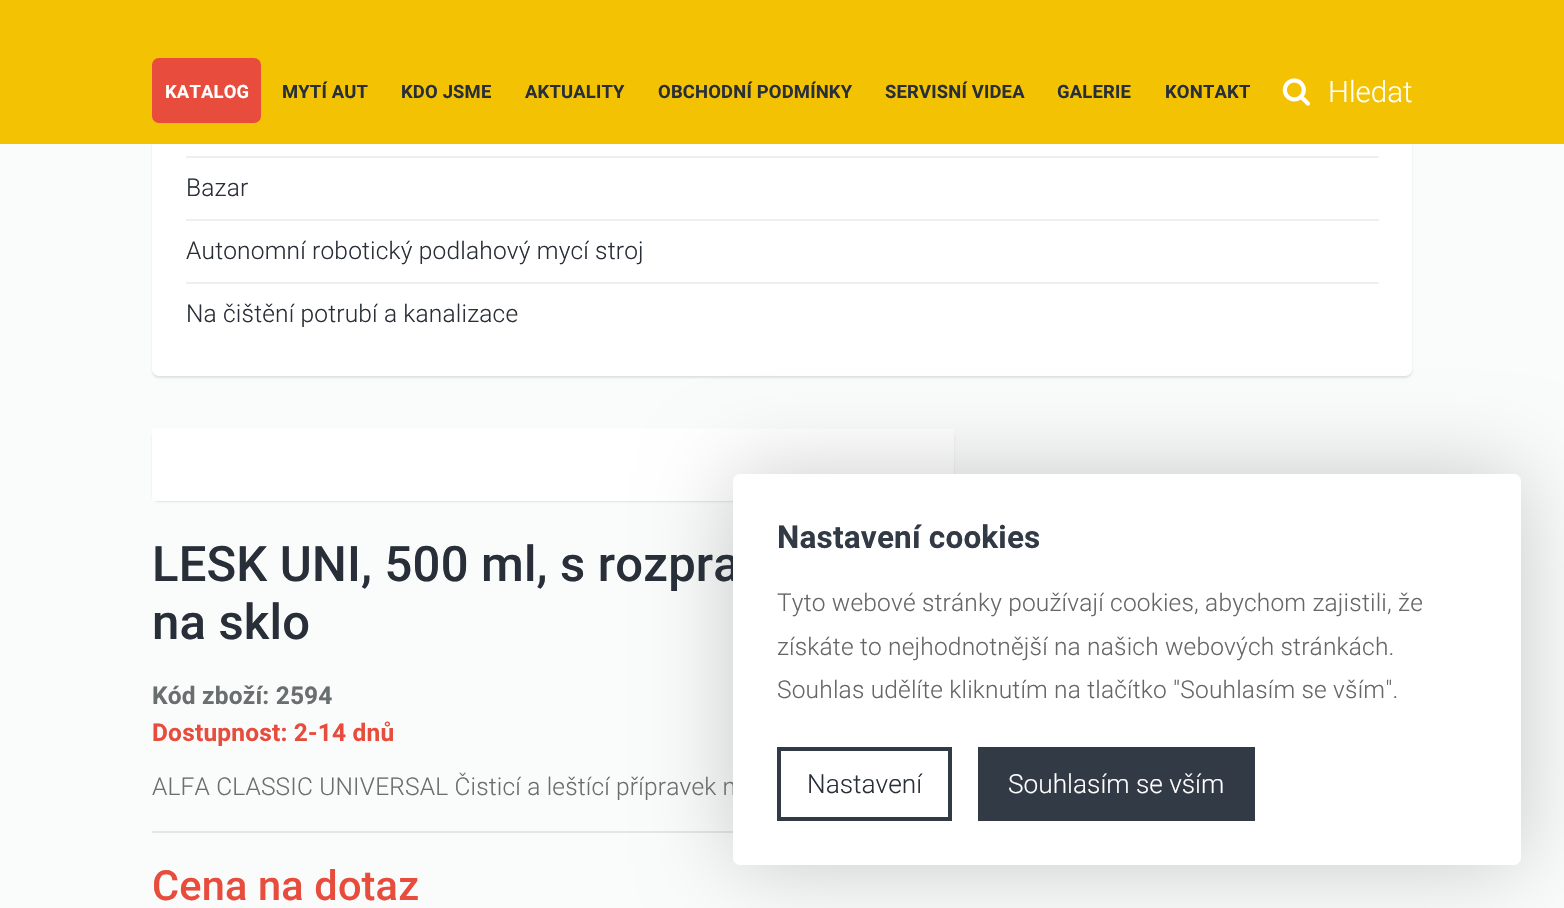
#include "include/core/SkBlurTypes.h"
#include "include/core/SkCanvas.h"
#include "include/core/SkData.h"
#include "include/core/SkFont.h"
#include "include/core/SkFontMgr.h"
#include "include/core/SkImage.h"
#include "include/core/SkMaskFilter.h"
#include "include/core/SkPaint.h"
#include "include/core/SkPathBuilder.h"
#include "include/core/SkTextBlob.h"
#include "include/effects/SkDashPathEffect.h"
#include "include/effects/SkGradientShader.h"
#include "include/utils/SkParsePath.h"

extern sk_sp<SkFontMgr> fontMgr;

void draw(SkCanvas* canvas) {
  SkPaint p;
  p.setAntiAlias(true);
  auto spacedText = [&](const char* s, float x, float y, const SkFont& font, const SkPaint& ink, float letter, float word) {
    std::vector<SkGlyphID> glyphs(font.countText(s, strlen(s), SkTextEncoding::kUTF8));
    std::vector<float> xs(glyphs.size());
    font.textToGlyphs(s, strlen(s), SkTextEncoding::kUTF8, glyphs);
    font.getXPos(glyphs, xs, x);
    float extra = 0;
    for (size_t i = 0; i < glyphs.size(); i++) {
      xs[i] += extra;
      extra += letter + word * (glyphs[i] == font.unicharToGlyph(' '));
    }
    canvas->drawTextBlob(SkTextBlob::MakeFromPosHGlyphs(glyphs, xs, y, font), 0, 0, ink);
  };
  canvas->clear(SkColorSetRGB(250, 251, 251));
  p.setColor(SkColorSetARGB(26, 0, 0, 0));
  p.setMaskFilter(SkMaskFilter::MakeBlur(kNormal_SkBlurStyle, 1));
  canvas->drawRoundRect(SkRect::MakeLTRB(152, -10, 1412, 378), 7, 7, p);
  p.setMaskFilter(nullptr);
  p.setColor(SK_ColorWHITE);
  canvas->drawPath(SkPathBuilder().moveTo(152, -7).lineTo(1412, -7).lineTo(1412, 369).cubicTo(1412, 373, 1409, 376, 1405, 376).lineTo(159, 376).cubicTo(155, 376, 152, 373, 152, 369).close().detach(), p);
  p.setColor(SkColorSetRGB(243, 194, 3));
  canvas->drawRect(SkRect::MakeLTRB(0, 0, 1564, 144), p);
  p.setColor(SkColorSetRGB(231, 76, 60));
  canvas->drawRoundRect(SkRect::MakeLTRB(152, 58, 261, 123), 7, 7, p);
  canvas->drawImageRect(SkImages::DeferredFromEncodedData(SkData::MakeFromFileName("images/1.png")), SkRect::MakeLTRB(1282, 78, 1310, 106), SkSamplingOptions());
  p.setColor(SkColorSetRGB(236, 240, 241));
  canvas->drawRect(SkRect::MakeLTRB(186, 156, 1379, 158), p);
  canvas->drawRect(SkRect::MakeLTRB(186, 219, 1379, 221), p);
  canvas->drawRect(SkRect::MakeLTRB(186, 282, 1379, 284), p);
  p.setColor(SkColorSetARGB(26, 0, 0, 0));
  p.setMaskFilter(SkMaskFilter::MakeBlur(kNormal_SkBlurStyle, 1));
  canvas->drawRoundRect(SkRect::MakeLTRB(152, 431, 954, 502), 7, 7, p);
  p.setMaskFilter(nullptr);
  p.setColor(SK_ColorWHITE);
  canvas->drawRoundRect(SkRect::MakeLTRB(152, 429, 954, 501), 7, 7, p);
  p.setStyle(SkPaint::kStroke_Style);
  p.setStrokeWidth(17.5f);
  canvas->drawPath(SkPathBuilder().moveTo(161, 437.5f).lineTo(945, 437.5f).lineTo(945, 492).lineTo(161, 492).close().detach(), p);
  p.setStyle(SkPaint::kFill_Style);
  p.setColor(SkColorSetRGB(226, 230, 231));
  canvas->drawRect(SkRect::MakeLTRB(152, 831, 733, 833), p);
  p.setColor(SkColorSetARGB(51, 0, 0, 0));
  p.setMaskFilter(SkMaskFilter::MakeBlur(kNormal_SkBlurStyle, 44));
  canvas->drawRoundRect(SkRect::MakeLTRB(733, 474, 1521, 865), 7, 7, p);
  p.setMaskFilter(nullptr);
  SkFont font1(fontMgr->matchFamilyStyle("Roboto", SkFontStyle::Bold()), 18.4f);
  font1.setSubpixel(true);
  p.setColor(SK_ColorWHITE);
  spacedText("KATALOG", 165, 98, font1, p, 0.18f, 0);
  p.setColor(SkColorSetRGB(41, 47, 56));
  spacedText("MYTÍ AUT", 282, 98, font1, p, 0.18f, 0);
  spacedText("KDO JSME", 401, 98, font1, p, 0.18f, 0);
  spacedText("AKTUALITY", 525, 98, font1, p, 0.18f, 0);
  spacedText("OBCHODNÍ PODMÍNKY", 658, 98, font1, p, 0.18f, 0);
  spacedText("SERVISNÍ VIDEA", 885, 98, font1, p, 0.18f, 0);
  spacedText("GALERIE", 1057, 98, font1, p, 0.18f, 0);
  spacedText("KONTAKT", 1165, 98, font1, p, 0.18f, 0);
  SkFont font2(fontMgr->matchFamilyStyle("Roboto", SkFontStyle(300, SkFontStyle::kNormal_Width, SkFontStyle::kUpright_Slant)), 29.5f);
  font2.setSubpixel(true);
  p.setColor(SK_ColorWHITE);
  canvas->drawString("Hledat", 1328, 102, font2, p);
  SkFont font3(fontMgr->matchFamilyStyle("Roboto", SkFontStyle(300, SkFontStyle::kNormal_Width, SkFontStyle::kUpright_Slant)), 24.5f);
  font3.setSubpixel(true);
  p.setColor(SkColorSetRGB(41, 47, 56));
  spacedText("Bazar", 186, 196, font3, p, 0.18f, 0);
  spacedText("Autonomní robotický podlahový mycí stroj", 186, 259, font3, p, 0.18f, 0);
  spacedText("Na čištění potrubí a kanalizace", 186, 322, font3, p, 0.18f, 0);
  SkFont font4(fontMgr->matchFamilyStyle("Roboto", SkFontStyle(500, SkFontStyle::kNormal_Width, SkFontStyle::kUpright_Slant)), 49);
  font4.setSubpixel(true);
  spacedText("LESK UNI, 500 ml, s rozpra", 152, 581, font4, p, 0.18f, 0);
  spacedText("na sklo", 152, 639, font4, p, 0.18f, 0);
  SkFont font5(fontMgr->matchFamilyStyle("Roboto", SkFontStyle::Bold()), 24.5f);
  font5.setSubpixel(true);
  p.setColor(SkColorSetRGB(105, 110, 110));
  spacedText("Kód zboží: 2594", 152, 704, font5, p, 0.18f, 0);
  p.setColor(SkColorSetRGB(231, 76, 60));
  spacedText("Dostupnost: 2-14 dnů", 152, 741, font5, p, 0.18f, 0);
  p.setColor(SkColorSetRGB(105, 110, 110));
  spacedText("ALFA CLASSIC UNIVERSAL Čisticí a leštící přípravek n", 152, 795, font3, p, 0.18f, 0);
  SkFont font6(fontMgr->matchFamilyStyle("Roboto", SkFontStyle(500, SkFontStyle::kNormal_Width, SkFontStyle::kUpright_Slant)), 41.5f);
  font6.setSubpixel(true);
  p.setColor(SkColorSetRGB(231, 76, 60));
  spacedText("Cena na dotaz", 152, 900, font6, p, 0.18f, 0);
  p.setColor(SK_ColorWHITE);
  canvas->drawRoundRect(SkRect::MakeLTRB(733, 474, 1521, 865), 7, 7, p);
  SkFont font7(fontMgr->matchFamilyStyle("Roboto", SkFontStyle::Bold()), 31.5f);
  font7.setSubpixel(true);
  p.setColor(SkColorSetRGB(50, 58, 69));
  spacedText("Nastavení cookies", 777, 548, font7, p, 0.18f, 0);
  p.setColor(SkColorSetRGB(102, 102, 102));
  spacedText("Tyto webové stránky používají cookies, abychom zajistili, že", 777, 611, font3, p, 0.18f, 0);
  spacedText("získáte to nejhodnotnější na našich webových stránkách.", 777, 655, font3, p, 0.18f, 0);
  spacedText("Souhlas udělíte kliknutím na tlačítko \"Souhlasím se vším\".", 777, 698, font3, p, 0.18f, 0);
  p.setStyle(SkPaint::kStroke_Style);
  p.setStrokeWidth(4);
  p.setColor(SkColorSetRGB(50, 58, 69));
  canvas->drawRect(SkRect::MakeLTRB(779, 749, 950, 819), p);
  SkFont font8(fontMgr->matchFamilyStyle("Roboto", SkFontStyle(300, SkFontStyle::kNormal_Width, SkFontStyle::kUpright_Slant)), 26.25f);
  font8.setSubpixel(true);
  p.setStyle(SkPaint::kFill_Style);
  p.setColor(SkColorSetRGB(41, 47, 56));
  canvas->drawString("Nastavení", 807, 793, font8, p);
  p.setColor(SkColorSetRGB(50, 58, 69));
  canvas->drawRect(SkRect::MakeLTRB(978, 747, 1255, 821), p);
  p.setColor(SK_ColorWHITE);
  canvas->drawString("Souhlasím se vším", 1008, 793, font8, p);
}
